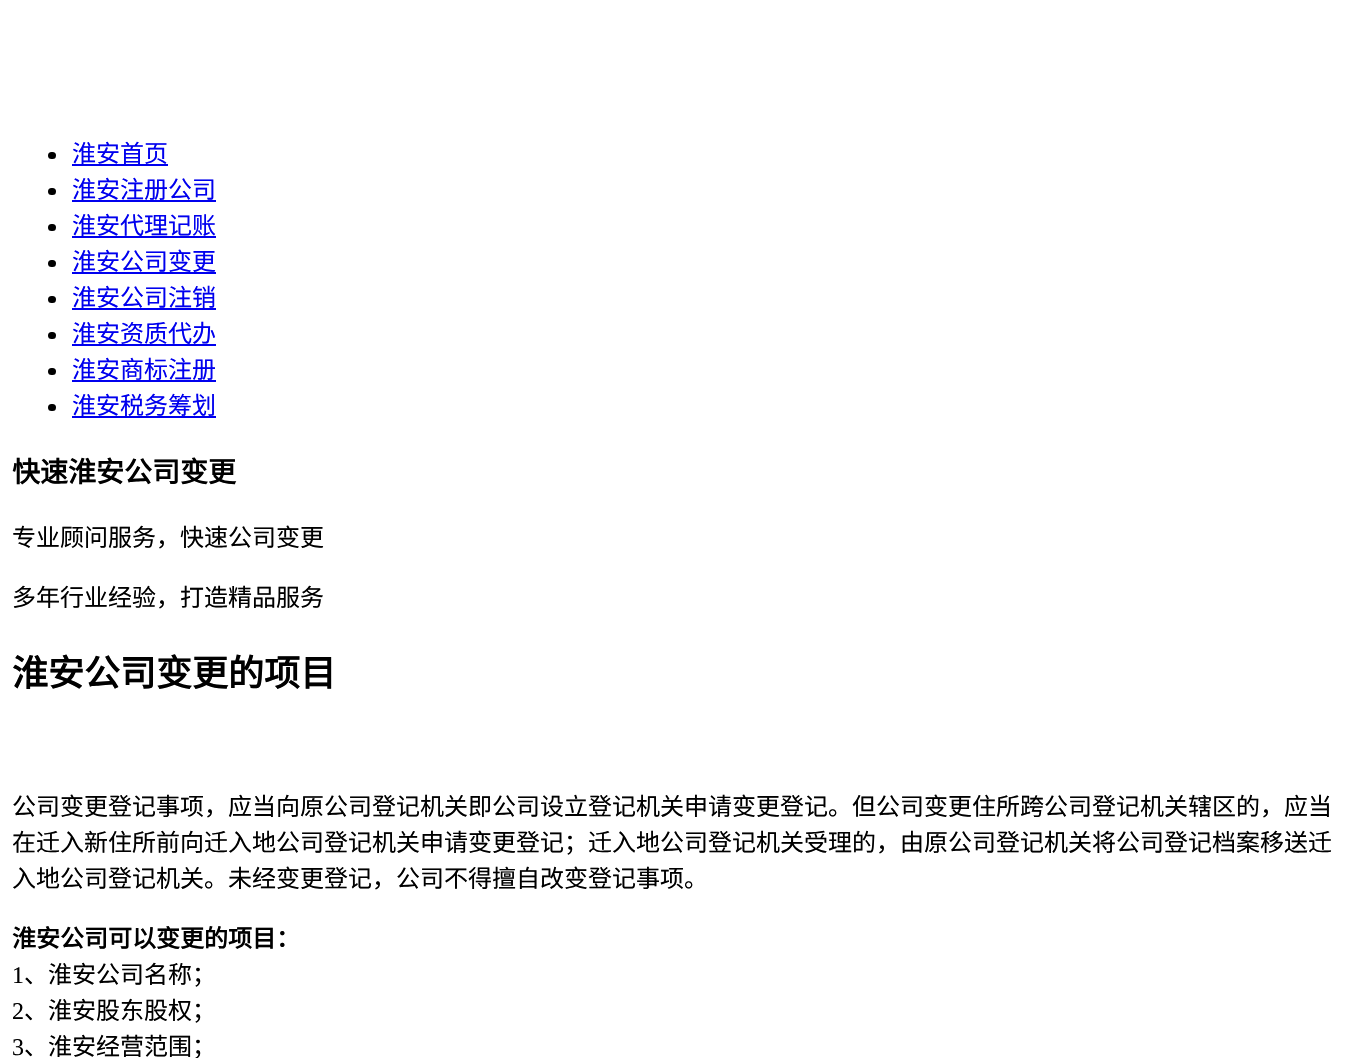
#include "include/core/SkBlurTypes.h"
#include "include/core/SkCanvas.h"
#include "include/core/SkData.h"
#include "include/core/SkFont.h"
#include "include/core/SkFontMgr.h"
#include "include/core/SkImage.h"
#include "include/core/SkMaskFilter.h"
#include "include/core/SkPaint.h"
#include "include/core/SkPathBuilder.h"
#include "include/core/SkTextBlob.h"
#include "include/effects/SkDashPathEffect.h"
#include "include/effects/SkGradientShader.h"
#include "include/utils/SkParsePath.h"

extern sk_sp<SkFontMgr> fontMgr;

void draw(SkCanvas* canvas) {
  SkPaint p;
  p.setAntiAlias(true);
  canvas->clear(SK_ColorWHITE);
  p.setColor(SK_ColorBLACK);
  canvas->drawRoundRect(SkRect::MakeLTRB(48, 152, 56, 159), 3.5f, 3.5f, p);
  p.setColor(SkColorSetRGB(0, 0, 238));
  canvas->drawRect(SkRect::MakeLTRB(72, 164, 168, 166), p);
  p.setColor(SK_ColorBLACK);
  canvas->drawRoundRect(SkRect::MakeLTRB(48, 188, 56, 195), 3.5f, 3.5f, p);
  p.setColor(SkColorSetRGB(0, 0, 238));
  canvas->drawRect(SkRect::MakeLTRB(72, 200, 216, 202), p);
  p.setColor(SK_ColorBLACK);
  canvas->drawRoundRect(SkRect::MakeLTRB(48, 224, 56, 231), 3.5f, 3.5f, p);
  p.setColor(SkColorSetRGB(0, 0, 238));
  canvas->drawRect(SkRect::MakeLTRB(72, 236, 216, 238), p);
  p.setColor(SK_ColorBLACK);
  canvas->drawRoundRect(SkRect::MakeLTRB(48, 260, 56, 267), 3.5f, 3.5f, p);
  p.setColor(SkColorSetRGB(0, 0, 238));
  canvas->drawRect(SkRect::MakeLTRB(72, 272, 216, 274), p);
  p.setColor(SK_ColorBLACK);
  canvas->drawRoundRect(SkRect::MakeLTRB(48, 296, 56, 303), 3.5f, 3.5f, p);
  p.setColor(SkColorSetRGB(0, 0, 238));
  canvas->drawRect(SkRect::MakeLTRB(72, 308, 216, 310), p);
  p.setColor(SK_ColorBLACK);
  canvas->drawRoundRect(SkRect::MakeLTRB(48, 332, 56, 339), 3.5f, 3.5f, p);
  p.setColor(SkColorSetRGB(0, 0, 238));
  canvas->drawRect(SkRect::MakeLTRB(72, 344, 216, 346), p);
  p.setColor(SK_ColorBLACK);
  canvas->drawRoundRect(SkRect::MakeLTRB(48, 368, 56, 375), 3.5f, 3.5f, p);
  p.setColor(SkColorSetRGB(0, 0, 238));
  canvas->drawRect(SkRect::MakeLTRB(72, 380, 216, 382), p);
  p.setColor(SK_ColorBLACK);
  canvas->drawRoundRect(SkRect::MakeLTRB(48, 404, 56, 411), 3.5f, 3.5f, p);
  p.setColor(SkColorSetRGB(0, 0, 238));
  canvas->drawRect(SkRect::MakeLTRB(72, 416, 216, 418), p);
  SkFont font1(fontMgr->matchFamilyStyle("Noto Sans CJK SC", SkFontStyle::Normal()), 24);
  font1.setSubpixel(true);
  canvas->drawString("淮安首页", 72, 162, font1, p);
  canvas->drawString("淮安注册公司", 72, 198, font1, p);
  canvas->drawString("淮安代理记账", 72, 234, font1, p);
  canvas->drawString("淮安公司变更", 72, 270, font1, p);
  canvas->drawString("淮安公司注销", 72, 306, font1, p);
  canvas->drawString("淮安资质代办", 72, 342, font1, p);
  canvas->drawString("淮安商标注册", 72, 378, font1, p);
  canvas->drawString("淮安税务筹划", 72, 414, font1, p);
  SkFont font2(fontMgr->matchFamilyStyle("Noto Sans CJK SC", SkFontStyle::Bold()), 28);
  font2.setSubpixel(true);
  p.setColor(SK_ColorBLACK);
  canvas->drawString("快速淮安公司变更", 12, 482, font2, p);
  canvas->drawString("专业顾问服务，快速公司变更", 12, 546, font1, p);
  canvas->drawString("多年行业经验，打造精品服务", 12, 606, font1, p);
  SkFont font3(fontMgr->matchFamilyStyle("Noto Sans CJK SC", SkFontStyle::Bold()), 36);
  font3.setSubpixel(true);
  canvas->drawString("淮安公司变更的项目", 12, 686, font3, p);
  canvas->drawString("公司变更登记事项，应当向原公司登记机关即公司设立登记机关申请变更登记。但公司变更住所跨公司登记机关辖区的，应当", 12, 815, font1, p);
  canvas->drawString("在迁入新住所前向迁入地公司登记机关申请变更登记；迁入地公司登记机关受理的，由原公司登记机关将公司登记档案移送迁", 12, 851, font1, p);
  canvas->drawString("入地公司登记机关。未经变更登记，公司不得擅自改变登记事项。", 12, 887, font1, p);
  SkFont font4(fontMgr->matchFamilyStyle("Noto Sans CJK SC", SkFontStyle::Bold()), 24);
  font4.setSubpixel(true);
  canvas->drawString("淮安公司可以变更的项目：", 12, 947, font4, p);
  SkFont font5(fontMgr->matchFamilyStyle("Liberation Serif", SkFontStyle::Normal()), 24);
  font5.setSubpixel(true);
  canvas->drawString("1", 12, 983, font5, p);
  canvas->drawString("、淮安公司名称；", 24, 983, font1, p);
  canvas->drawString("2", 12, 1019, font5, p);
  canvas->drawString("、淮安股东股权；", 24, 1019, font1, p);
  canvas->drawString("3", 12, 1055, font5, p);
  canvas->drawString("、淮安经营范围；", 24, 1055, font1, p);
}
